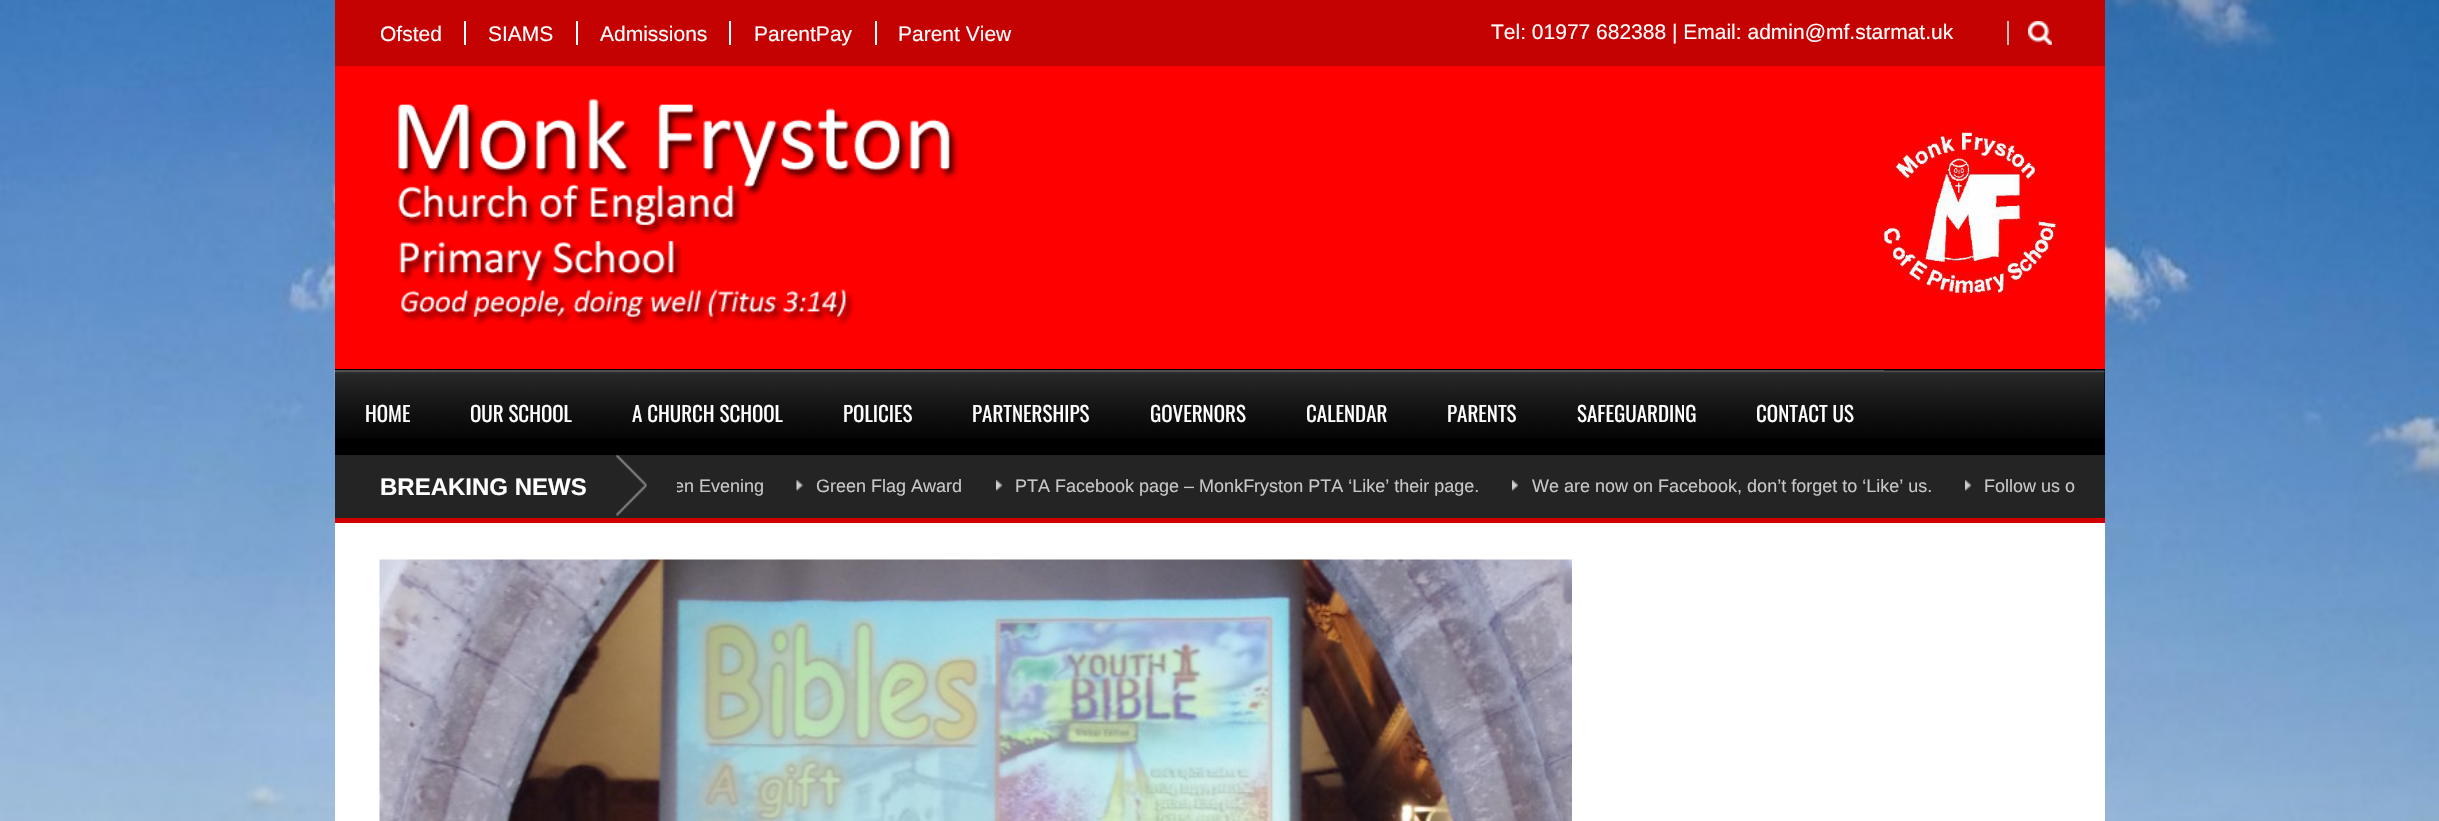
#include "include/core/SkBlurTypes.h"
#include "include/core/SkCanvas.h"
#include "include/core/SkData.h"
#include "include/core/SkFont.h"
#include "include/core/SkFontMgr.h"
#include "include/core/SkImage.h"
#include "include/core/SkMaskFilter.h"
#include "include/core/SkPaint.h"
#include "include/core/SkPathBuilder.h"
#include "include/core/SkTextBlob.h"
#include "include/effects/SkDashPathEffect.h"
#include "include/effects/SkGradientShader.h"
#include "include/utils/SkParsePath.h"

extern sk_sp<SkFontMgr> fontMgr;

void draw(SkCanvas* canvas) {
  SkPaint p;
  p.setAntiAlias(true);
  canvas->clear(SK_ColorWHITE);
  canvas->drawImageRect(SkImages::DeferredFromEncodedData(SkData::MakeFromFileName("images/1.png")), SkRect::MakeLTRB(0, 0, 2439, 821), SkSamplingOptions());
  p.setColor(SkColorSetRGB(196, 2, 2));
  canvas->drawRect(SkRect::MakeLTRB(335, 0, 2105, 66), p);
  p.setColor(SK_ColorWHITE);
  canvas->drawRect(SkRect::MakeLTRB(464, 21, 466, 45), p);
  canvas->drawRect(SkRect::MakeLTRB(576, 21, 578, 45), p);
  canvas->drawRect(SkRect::MakeLTRB(729, 21, 731, 45), p);
  canvas->drawRect(SkRect::MakeLTRB(875, 21, 877, 45), p);
  canvas->drawImageRect(SkImages::DeferredFromEncodedData(SkData::MakeFromFileName("images/2.png")), SkRect::MakeLTRB(2028, 21, 2052, 45), SkSamplingOptions());
  p.setColor(SkColorSetRGB(186, 186, 186));
  canvas->drawRect(SkRect::MakeLTRB(2007, 21, 2009, 45), p);
  p.setColor(SkColorSetRGB(255, 0, 0));
  canvas->drawRect(SkRect::MakeLTRB(335, 66, 2105, 369), p);
  canvas->drawImageRect(SkImages::DeferredFromEncodedData(SkData::MakeFromFileName("images/3.png")), SkRect::MakeLTRB(398, 99, 958, 327), SkSamplingOptions());
  canvas->drawImageRect(SkImages::DeferredFromEncodedData(SkData::MakeFromFileName("images/4.png")), SkRect::MakeLTRB(1879, 126, 2060, 300), SkSamplingOptions());
  p.setColor(SK_ColorBLACK);
  canvas->drawRect(SkRect::MakeLTRB(335, 369, 2105, 455), p);
  canvas->drawImageRect(SkImages::DeferredFromEncodedData(SkData::MakeFromFileName("images/5.png")), SkRect::MakeLTRB(334, 370, 2105, 438), SkSamplingOptions());
  canvas->drawRect(SkRect::MakeLTRB(335, 371, 1884, 438), p);
  canvas->drawImageRect(SkImages::DeferredFromEncodedData(SkData::MakeFromFileName("images/6.png")), SkRect::MakeLTRB(334, 370, 440, 438), SkSamplingOptions());
  canvas->drawImageRect(SkImages::DeferredFromEncodedData(SkData::MakeFromFileName("images/7.png")), SkRect::MakeLTRB(439, 370, 602, 438), SkSamplingOptions());
  canvas->drawImageRect(SkImages::DeferredFromEncodedData(SkData::MakeFromFileName("images/8.png")), SkRect::MakeLTRB(601, 370, 813, 438), SkSamplingOptions());
  canvas->drawImageRect(SkImages::DeferredFromEncodedData(SkData::MakeFromFileName("images/9.png")), SkRect::MakeLTRB(813, 370, 942, 438), SkSamplingOptions());
  canvas->drawImageRect(SkImages::DeferredFromEncodedData(SkData::MakeFromFileName("images/10.png")), SkRect::MakeLTRB(942, 370, 1121, 438), SkSamplingOptions());
  canvas->drawImageRect(SkImages::DeferredFromEncodedData(SkData::MakeFromFileName("images/11.png")), SkRect::MakeLTRB(1120, 370, 1275, 438), SkSamplingOptions());
  canvas->drawImageRect(SkImages::DeferredFromEncodedData(SkData::MakeFromFileName("images/12.png")), SkRect::MakeLTRB(1275, 370, 1418, 438), SkSamplingOptions());
  canvas->drawImageRect(SkImages::DeferredFromEncodedData(SkData::MakeFromFileName("images/13.png")), SkRect::MakeLTRB(1417, 370, 1547, 438), SkSamplingOptions());
  canvas->drawImageRect(SkImages::DeferredFromEncodedData(SkData::MakeFromFileName("images/14.png")), SkRect::MakeLTRB(1546, 370, 1727, 438), SkSamplingOptions());
  canvas->drawImageRect(SkImages::DeferredFromEncodedData(SkData::MakeFromFileName("images/15.png")), SkRect::MakeLTRB(1726, 370, 1884, 438), SkSamplingOptions());
  p.setColor(SkColorSetRGB(36, 36, 36));
  canvas->drawRect(SkRect::MakeLTRB(335, 455, 2105, 518), p);
  p.setColor(SkColorSetRGB(209, 0, 0));
  canvas->drawRect(SkRect::MakeLTRB(335, 518, 2105, 523), p);
  canvas->drawImageRect(SkImages::DeferredFromEncodedData(SkData::MakeFromFileName("images/16.png")), SkRect::MakeLTRB(616, 455, 647, 516), SkSamplingOptions());
  canvas->drawImageRect(SkImages::DeferredFromEncodedData(SkData::MakeFromFileName("images/17.png")), SkRect::MakeLTRB(796, 480, 803, 491), SkSamplingOptions());
  canvas->drawImageRect(SkImages::DeferredFromEncodedData(SkData::MakeFromFileName("images/18.png")), SkRect::MakeLTRB(996, 480, 1002, 491), SkSamplingOptions());
  canvas->drawImageRect(SkImages::DeferredFromEncodedData(SkData::MakeFromFileName("images/19.png")), SkRect::MakeLTRB(1512, 480, 1518, 491), SkSamplingOptions());
  canvas->drawImageRect(SkImages::DeferredFromEncodedData(SkData::MakeFromFileName("images/19.png")), SkRect::MakeLTRB(1965, 480, 1971, 491), SkSamplingOptions());
  p.setColor(SK_ColorWHITE);
  canvas->drawRect(SkRect::MakeLTRB(335, 523, 2105, 821), p);
  canvas->drawImageRect(SkImages::DeferredFromEncodedData(SkData::MakeFromFileName("images/20.png")), SkRect::MakeLTRB(379, 559, 1572, 821), SkSamplingOptions());
  SkFont font1(fontMgr->matchFamilyStyle("Liberation Sans", SkFontStyle::Normal()), 21);
  font1.setSubpixel(true);
  canvas->drawString("Ofsted", 380, 41, font1, p);
  canvas->drawString("SIAMS", 488, 41, font1, p);
  canvas->drawString("Admissions", 600, 41, font1, p);
  canvas->drawString("ParentPay", 754, 41, font1, p);
  canvas->drawString("Parent View", 898, 41, font1, p);
  canvas->drawString("Tel: 01977 682388 | Email: admin@mf.starmat.uk", 1491, 39, font1, p);
  SkFont font2(fontMgr->matchFamilyStyle("Oswald", SkFontStyle::Normal()), 21);
  font2.setSubpixel(true);
  canvas->drawString("HOME", 365, 422, font2, p);
  canvas->drawString("OUR SCHOOL", 470, 422, font2, p);
  canvas->drawString("A CHURCH SCHOOL", 632, 422, font2, p);
  canvas->drawString("POLICIES", 843, 422, font2, p);
  canvas->drawString("PARTNERSHIPS", 972, 422, font2, p);
  canvas->drawString("GOVERNORS", 1150, 422, font2, p);
  canvas->drawString("CALENDAR", 1306, 422, font2, p);
  canvas->drawString("PARENTS", 1447, 422, font2, p);
  canvas->drawString("SAFEGUARDING", 1577, 422, font2, p);
  canvas->drawString("CONTACT US", 1756, 422, font2, p);
  SkFont font3(fontMgr->matchFamilyStyle("Liberation Sans", SkFontStyle::Bold()), 24);
  font3.setSubpixel(true);
  canvas->drawString("BREAKING NEWS", 380, 495, font3, p);
  canvas->save();
  canvas->clipRect(SkRect::MakeLTRB(677, 455, 2075, 518));
  SkFont font4(fontMgr->matchFamilyStyle("Liberation Sans", SkFontStyle::Normal()), 18);
  font4.setSubpixel(true);
  p.setColor(SkColorSetRGB(199, 199, 199));
  canvas->drawString("en Evening", 674, 492, font4, p);
  canvas->restore();
  canvas->drawString("Green Flag Award", 816, 492, font4, p);
  canvas->drawString("PTA Facebook page – MonkFryston PTA ‘Like’ their page.", 1015, 492, font4, p);
  canvas->drawString("We are now on Facebook, don’t forget to ‘Like’ us.", 1532, 492, font4, p);
  canvas->drawString("Follow us o", 1984, 492, font4, p);
}
